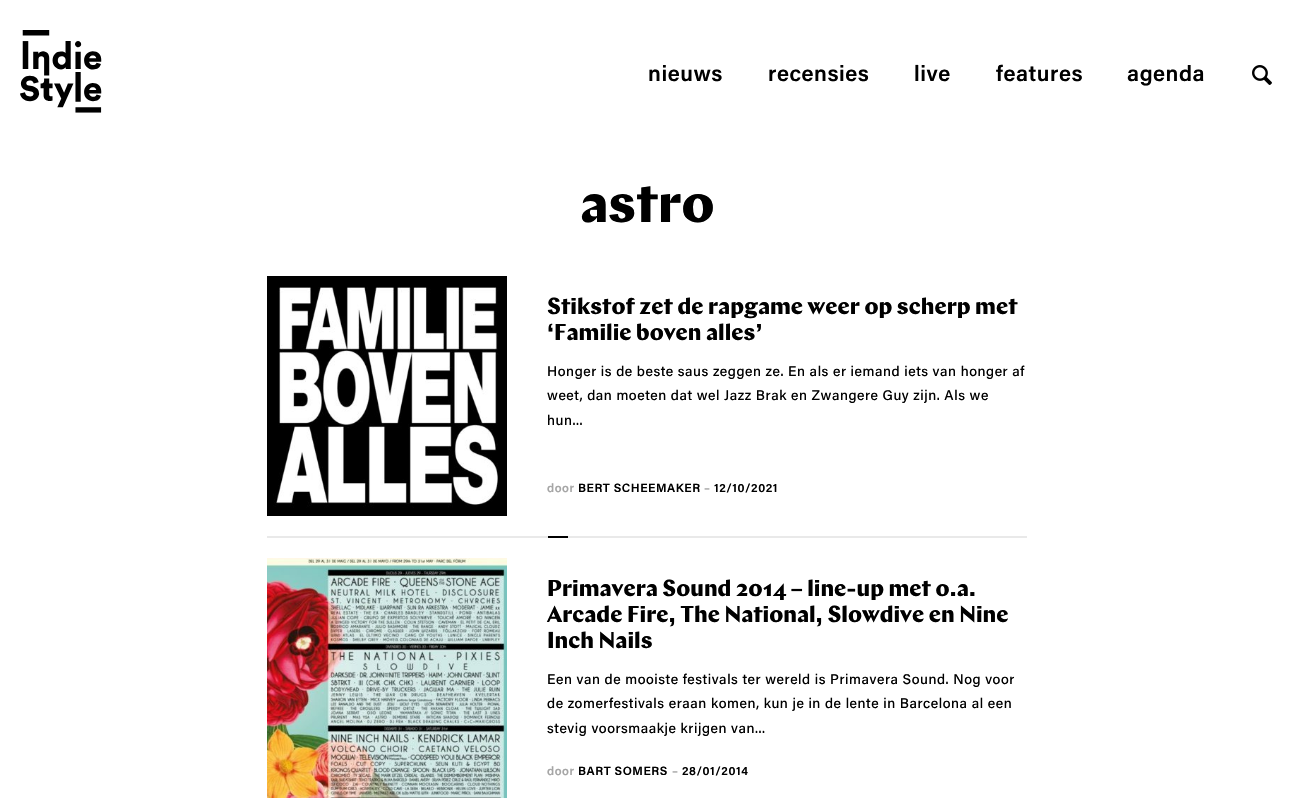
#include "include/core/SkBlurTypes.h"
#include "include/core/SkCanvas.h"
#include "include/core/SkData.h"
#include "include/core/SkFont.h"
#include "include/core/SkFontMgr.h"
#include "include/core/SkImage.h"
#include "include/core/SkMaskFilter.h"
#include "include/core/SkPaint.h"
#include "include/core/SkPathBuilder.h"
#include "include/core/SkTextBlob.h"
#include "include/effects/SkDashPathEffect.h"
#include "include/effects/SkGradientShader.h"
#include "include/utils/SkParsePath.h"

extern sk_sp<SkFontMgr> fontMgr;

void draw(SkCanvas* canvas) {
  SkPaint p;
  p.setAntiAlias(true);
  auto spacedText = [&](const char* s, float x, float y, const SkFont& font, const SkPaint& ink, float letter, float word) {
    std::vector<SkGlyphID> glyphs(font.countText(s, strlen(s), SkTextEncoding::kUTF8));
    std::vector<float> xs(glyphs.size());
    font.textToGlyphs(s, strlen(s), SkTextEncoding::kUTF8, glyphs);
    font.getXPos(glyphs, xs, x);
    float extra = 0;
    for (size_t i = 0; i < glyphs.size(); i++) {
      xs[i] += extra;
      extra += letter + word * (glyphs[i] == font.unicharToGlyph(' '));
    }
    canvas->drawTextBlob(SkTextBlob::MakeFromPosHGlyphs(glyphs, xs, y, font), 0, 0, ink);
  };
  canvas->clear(SK_ColorWHITE);
  canvas->drawImageRect(SkImages::DeferredFromEncodedData(SkData::MakeFromFileName("images/1.png")), SkRect::MakeLTRB(20, 30, 102, 113), SkSamplingOptions());
  canvas->drawImageRect(SkImages::DeferredFromEncodedData(SkData::MakeFromFileName("images/2.png")), SkRect::MakeLTRB(1252, 65, 1272, 85), SkSamplingOptions());
  p.setColor(SkColorSetRGB(233, 233, 233));
  canvas->drawRect(SkRect::MakeLTRB(267, 536, 1027, 538), p);
  canvas->drawImageRect(SkImages::DeferredFromEncodedData(SkData::MakeFromFileName("images/3.png")), SkRect::MakeLTRB(267, 276, 507, 516), SkSamplingOptions());
  p.setColor(SK_ColorBLACK);
  canvas->drawRect(SkRect::MakeLTRB(548, 536, 568, 538), p);
  canvas->drawImageRect(SkImages::DeferredFromEncodedData(SkData::MakeFromFileName("images/4.png")), SkRect::MakeLTRB(267, 558, 507, 798), SkSamplingOptions());
  SkFont font1(fontMgr->matchFamilyStyle("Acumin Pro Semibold", SkFontStyle(600, SkFontStyle::kNormal_Width, SkFontStyle::kUpright_Slant)), 22);
  font1.setSubpixel(true);
  spacedText("nieuws", 648, 81, font1, p, 0.55f, 0);
  spacedText("recensies", 768, 81, font1, p, 0.55f, 0);
  spacedText("live", 914, 81, font1, p, 0.55f, 0);
  spacedText("features", 996, 81, font1, p, 0.55f, 0);
  spacedText("agenda", 1127, 81, font1, p, 0.55f, 0);
  SkFont font2(fontMgr->matchFamilyStyle("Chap", SkFontStyle::Bold()), 54);
  font2.setSubpixel(true);
  canvas->drawString("astro", 580, 222, font2, p);
  SkFont font3(fontMgr->matchFamilyStyle("Chap", SkFontStyle::Bold()), 23);
  font3.setSubpixel(true);
  canvas->drawString("Stikstof zet de rapgame weer op scherp met", 547, 314, font3, p);
  canvas->drawString("‘Familie boven alles’", 547, 340, font3, p);
  SkFont font4(fontMgr->matchFamilyStyle("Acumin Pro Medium", SkFontStyle(500, SkFontStyle::kNormal_Width, SkFontStyle::kUpright_Slant)), 14);
  font4.setSubpixel(true);
  spacedText("Honger is de beste saus zeggen ze. En als er iemand iets van honger af", 547, 376, font4, p, 0.55f, 0);
  spacedText("weet, dan moeten dat wel Jazz Brak en Zwangere Guy zijn. Als we", 547, 400, font4, p, 0.55f, 0);
  spacedText("hun...", 547, 425, font4, p, 0.55f, 0);
  SkFont font5(fontMgr->matchFamilyStyle("Acumin Pro Semibold", SkFontStyle(600, SkFontStyle::kNormal_Width, SkFontStyle::kUpright_Slant)), 12);
  font5.setSubpixel(true);
  p.setColor(SkColorSetRGB(166, 166, 166));
  spacedText("door", 547, 492, font5, p, 0.55f, 0);
  p.setColor(SK_ColorBLACK);
  spacedText("BERT SCHEEMAKER", 578, 492, font5, p, 0.55f, 0);
  p.setColor(SkColorSetRGB(166, 166, 166));
  spacedText("–", 704, 492, font5, p, 0.55f, 0);
  p.setColor(SK_ColorBLACK);
  spacedText("12/10/2021", 714, 492, font5, p, 0.55f, 0);
  canvas->drawString("Primavera Sound 2014 – line-up met o.a.", 547, 596, font3, p);
  canvas->drawString("Arcade Fire, The National, Slowdive en Nine", 547, 622, font3, p);
  canvas->drawString("Inch Nails", 547, 648, font3, p);
  spacedText("Een van de mooiste festivals ter wereld is Primavera Sound. Nog voor", 547, 684, font4, p, 0.55f, 0);
  spacedText("de zomerfestivals eraan komen, kun je in de lente in Barcelona al een", 547, 708, font4, p, 0.55f, 0);
  spacedText("stevig voorsmaakje krijgen van...", 547, 733, font4, p, 0.55f, 0);
  p.setColor(SkColorSetRGB(166, 166, 166));
  spacedText("door", 547, 775, font5, p, 0.55f, 0);
  p.setColor(SK_ColorBLACK);
  spacedText("BART SOMERS", 578, 775, font5, p, 0.55f, 0);
  p.setColor(SkColorSetRGB(166, 166, 166));
  spacedText("–", 672, 775, font5, p, 0.55f, 0);
  p.setColor(SK_ColorBLACK);
  spacedText("28/01/2014", 682, 775, font5, p, 0.55f, 0);
}
